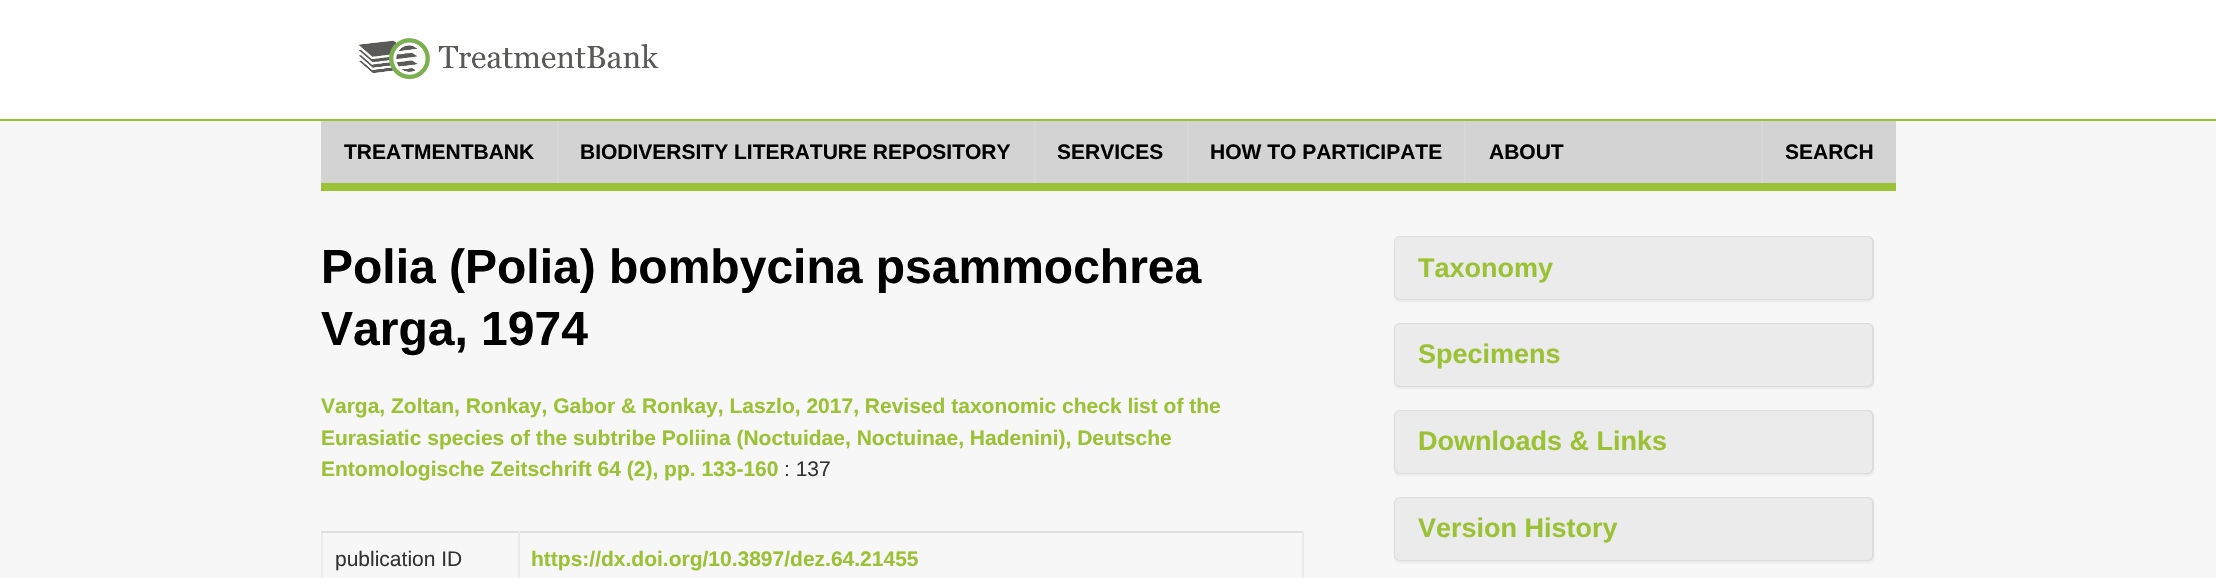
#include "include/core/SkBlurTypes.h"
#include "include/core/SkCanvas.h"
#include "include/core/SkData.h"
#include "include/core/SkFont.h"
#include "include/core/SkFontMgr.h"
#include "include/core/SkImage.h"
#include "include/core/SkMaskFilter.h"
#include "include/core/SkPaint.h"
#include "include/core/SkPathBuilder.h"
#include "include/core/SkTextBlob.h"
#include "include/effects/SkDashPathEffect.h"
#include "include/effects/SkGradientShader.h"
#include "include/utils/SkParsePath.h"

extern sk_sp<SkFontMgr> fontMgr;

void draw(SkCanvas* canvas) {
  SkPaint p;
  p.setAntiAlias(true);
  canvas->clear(SkColorSetRGB(247, 247, 247));
  p.setColor(SK_ColorWHITE);
  canvas->drawRect(SkRect::MakeLTRB(0, 0, 2216, 119), p);
  p.setColor(SkColorSetRGB(211, 211, 211));
  canvas->drawRect(SkRect::MakeLTRB(321, 121, 1896, 183), p);
  p.setColor(SkColorSetRGB(215, 215, 215));
  canvas->drawRect(SkRect::MakeLTRB(557, 120, 559, 183), p);
  canvas->drawRect(SkRect::MakeLTRB(1034, 120, 1036, 183), p);
  canvas->drawRect(SkRect::MakeLTRB(1187, 120, 1189, 183), p);
  canvas->drawRect(SkRect::MakeLTRB(1464, 120, 1466, 183), p);
  canvas->drawRect(SkRect::MakeLTRB(1761, 120, 1763, 183), p);
  p.setColor(SkColorSetRGB(155, 193, 52));
  canvas->drawRect(SkRect::MakeLTRB(0, 119, 2216, 121), p);
  canvas->drawImageRect(SkImages::DeferredFromEncodedData(SkData::MakeFromFileName("images/1.png")), SkRect::MakeLTRB(358, 38, 659, 79), SkSamplingOptions());
  canvas->drawRect(SkRect::MakeLTRB(321, 183, 1896, 191), p);
  p.setColor(SkColorSetRGB(235, 235, 235));
  canvas->drawRect(SkRect::MakeLTRB(321, 531, 323, 578), p);
  p.setColor(SkColorSetRGB(221, 221, 221));
  canvas->drawRect(SkRect::MakeLTRB(321, 531, 1304, 533), p);
  p.setColor(SkColorSetRGB(235, 235, 235));
  canvas->drawRect(SkRect::MakeLTRB(518, 531, 520, 578), p);
  canvas->drawRect(SkRect::MakeLTRB(1302, 531, 1304, 578), p);
  p.setColor(SkColorSetARGB(13, 0, 0, 0));
  p.setMaskFilter(SkMaskFilter::MakeBlur(kNormal_SkBlurStyle, 1));
  canvas->drawRoundRect(SkRect::MakeLTRB(1394, 237, 1874, 302), 6, 6, p);
  p.setMaskFilter(nullptr);
  p.setStyle(SkPaint::kStroke_Style);
  p.setStrokeWidth(2);
  p.setColor(SkColorSetRGB(221, 221, 221));
  canvas->drawRoundRect(SkRect::MakeLTRB(1395, 237, 1873, 299), 5, 5, p);
  p.setStyle(SkPaint::kFill_Style);
  p.setColor(SkColorSetRGB(235, 235, 235));
  canvas->drawRoundRect(SkRect::MakeLTRB(1395, 237, 1872, 299), 5, 5, p);
  p.setColor(SkColorSetARGB(13, 0, 0, 0));
  p.setMaskFilter(SkMaskFilter::MakeBlur(kNormal_SkBlurStyle, 1));
  canvas->drawRoundRect(SkRect::MakeLTRB(1394, 324, 1874, 389), 6, 6, p);
  p.setMaskFilter(nullptr);
  p.setStyle(SkPaint::kStroke_Style);
  p.setColor(SkColorSetRGB(221, 221, 221));
  canvas->drawRoundRect(SkRect::MakeLTRB(1395, 324, 1873, 386), 5, 5, p);
  p.setStyle(SkPaint::kFill_Style);
  p.setColor(SkColorSetRGB(235, 235, 235));
  canvas->drawRoundRect(SkRect::MakeLTRB(1395, 324, 1872, 386), 5, 5, p);
  p.setColor(SkColorSetARGB(13, 0, 0, 0));
  p.setMaskFilter(SkMaskFilter::MakeBlur(kNormal_SkBlurStyle, 1));
  canvas->drawRoundRect(SkRect::MakeLTRB(1394, 411, 1874, 476), 6, 6, p);
  p.setMaskFilter(nullptr);
  p.setStyle(SkPaint::kStroke_Style);
  p.setColor(SkColorSetRGB(221, 221, 221));
  canvas->drawRoundRect(SkRect::MakeLTRB(1395, 411, 1873, 473), 5, 5, p);
  p.setStyle(SkPaint::kFill_Style);
  p.setColor(SkColorSetRGB(235, 235, 235));
  canvas->drawRoundRect(SkRect::MakeLTRB(1395, 411, 1872, 473), 5, 5, p);
  p.setColor(SkColorSetARGB(13, 0, 0, 0));
  p.setMaskFilter(SkMaskFilter::MakeBlur(kNormal_SkBlurStyle, 1));
  canvas->drawRoundRect(SkRect::MakeLTRB(1394, 498, 1874, 563), 6, 6, p);
  p.setMaskFilter(nullptr);
  p.setStyle(SkPaint::kStroke_Style);
  p.setColor(SkColorSetRGB(221, 221, 221));
  canvas->drawRoundRect(SkRect::MakeLTRB(1395, 498, 1873, 560), 5, 5, p);
  p.setStyle(SkPaint::kFill_Style);
  p.setColor(SkColorSetRGB(235, 235, 235));
  canvas->drawRoundRect(SkRect::MakeLTRB(1395, 498, 1872, 560), 5, 5, p);
  SkFont font1(fontMgr->matchFamilyStyle("Liberation Sans", SkFontStyle::Bold()), 21);
  font1.setSubpixel(true);
  p.setColor(SK_ColorBLACK);
  canvas->drawString("TREATMENTBANK", 344, 159, font1, p);
  canvas->drawString("BIODIVERSITY LITERATURE REPOSITORY", 580, 159, font1, p);
  canvas->drawString("SERVICES", 1057, 159, font1, p);
  canvas->drawString("HOW TO PARTICIPATE", 1210, 159, font1, p);
  canvas->drawString("ABOUT", 1489, 159, font1, p);
  canvas->drawString("SEARCH", 1785, 159, font1, p);
  SkFont font2(fontMgr->matchFamilyStyle("Liberation Sans", SkFontStyle::Bold()), 48);
  font2.setSubpixel(true);
  canvas->drawString("Polia (Polia) bombycina psammochrea", 321, 283, font2, p);
  canvas->drawString("Varga, 1974", 321, 345, font2, p);
  p.setColor(SkColorSetRGB(155, 193, 52));
  canvas->drawString("Varga, Zoltan, Ronkay, Gabor & Ronkay, Laszlo, 2017, Revised taxonomic check list of the", 321, 413, font1, p);
  canvas->drawString("Eurasiatic species of the subtribe Poliina (Noctuidae, Noctuinae, Hadenini), Deutsche", 321, 445, font1, p);
  canvas->drawString("Entomologische Zeitschrift 64 (2), pp. 133-160", 321, 476, font1, p);
  SkFont font3(fontMgr->matchFamilyStyle("Liberation Sans", SkFontStyle::Normal()), 21);
  font3.setSubpixel(true);
  p.setColor(SkColorSetRGB(51, 51, 51));
  canvas->drawString(": 137", 784, 476, font3, p);
  canvas->drawString("publication ID", 335, 566, font3, p);
  p.setColor(SkColorSetRGB(155, 193, 52));
  canvas->drawString("https://dx.doi.org/10.3897/dez.64.21455", 531, 566, font1, p);
  SkFont font4(fontMgr->matchFamilyStyle("Liberation Sans", SkFontStyle::Bold()), 27);
  font4.setSubpixel(true);
  canvas->drawString("Taxonomy", 1418, 277, font4, p);
  canvas->drawString("Specimens", 1418, 363, font4, p);
  canvas->drawString("Downloads & Links", 1418, 450, font4, p);
  canvas->drawString("Version History", 1418, 537, font4, p);
}
